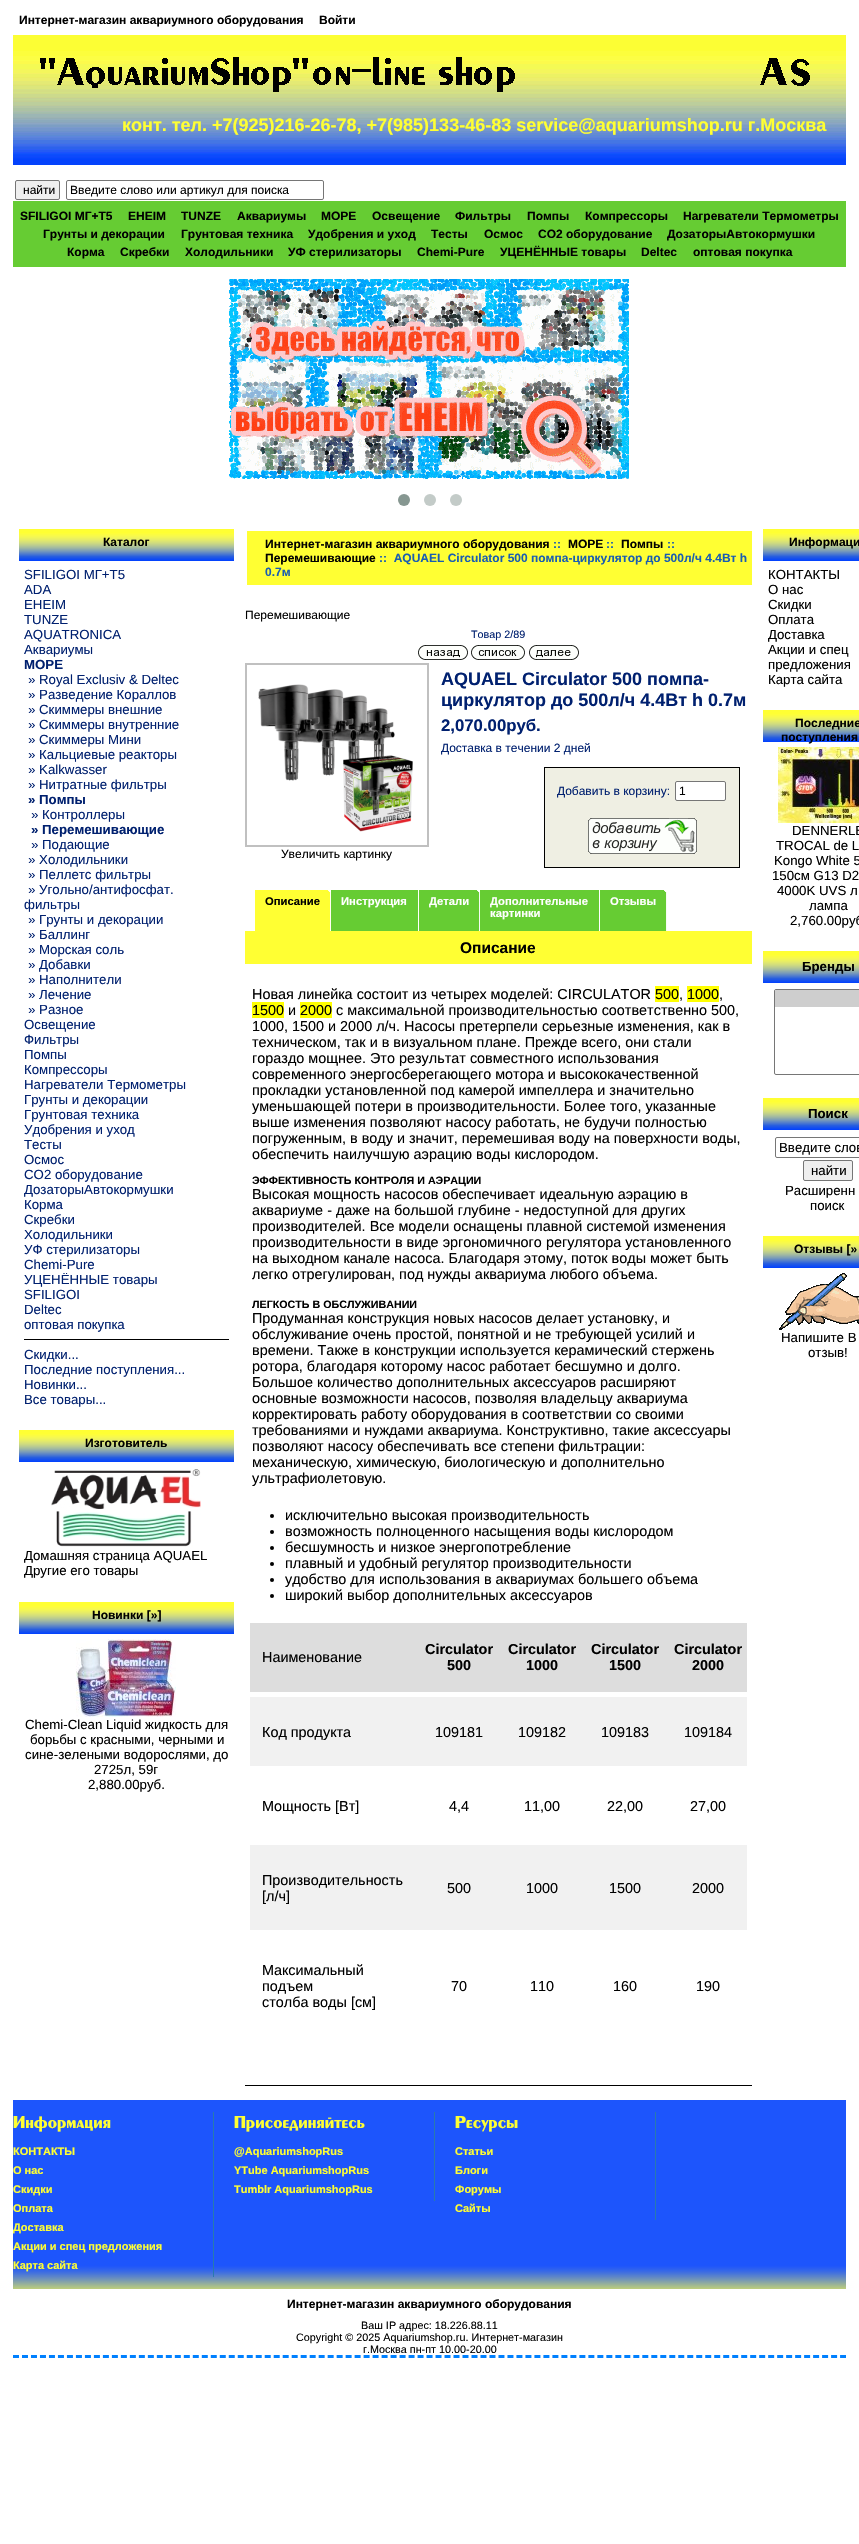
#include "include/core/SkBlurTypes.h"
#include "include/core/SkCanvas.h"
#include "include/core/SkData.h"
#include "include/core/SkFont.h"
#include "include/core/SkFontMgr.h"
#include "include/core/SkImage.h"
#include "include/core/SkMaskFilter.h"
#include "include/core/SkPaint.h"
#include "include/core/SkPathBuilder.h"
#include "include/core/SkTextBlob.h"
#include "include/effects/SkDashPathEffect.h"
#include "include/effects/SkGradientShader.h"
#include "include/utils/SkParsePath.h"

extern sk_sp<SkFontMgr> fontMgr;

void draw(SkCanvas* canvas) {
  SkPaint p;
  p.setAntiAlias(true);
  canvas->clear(SK_ColorWHITE);
  p.setStyle(SkPaint::kStroke_Style);
  p.setStrokeWidth(3);
  p.setColor(SkColorSetRGB(0, 128, 255));
  p.setPathEffect(SkDashPathEffect::Make({{6, 2.99f}}, 0));
  canvas->drawPath(SkPathBuilder().moveTo(13, 2356.5f).lineTo(846, 2356.5f).detach(), p);
  p.setPathEffect(nullptr);
  canvas->drawImageRect(SkImages::DeferredFromEncodedData(SkData::MakeFromFileName("images/1.png")), SkRect::MakeLTRB(13, 35, 846, 165), SkSamplingOptions());
  canvas->drawImageRect(SkImages::DeferredFromEncodedData(SkData::MakeFromFileName("images/2.png")), SkRect::MakeLTRB(40, 57, 515, 92), SkSamplingOptions());
  canvas->drawImageRect(SkImages::DeferredFromEncodedData(SkData::MakeFromFileName("images/3.png")), SkRect::MakeLTRB(760, 58, 810, 86), SkSamplingOptions());
  p.setStyle(SkPaint::kFill_Style);
  p.setColor(SkColorSetRGB(239, 239, 239));
  canvas->drawRoundRect(SkRect::MakeLTRB(15.5f, 180.5f, 59.5f, 199.5f), 1.5f, 1.5f, p);
  p.setStyle(SkPaint::kStroke_Style);
  p.setStrokeWidth(1);
  p.setColor(SkColorSetRGB(118, 118, 118));
  canvas->drawRoundRect(SkRect::MakeLTRB(15.5f, 180.5f, 59.5f, 199.5f), 1.5f, 1.5f, p);
  canvas->drawRoundRect(SkRect::MakeLTRB(66.5f, 180.5f, 323.5f, 199.5f), 1.5f, 1.5f, p);
  p.setStyle(SkPaint::kFill_Style);
  p.setColor(SkColorSetRGB(102, 204, 51));
  canvas->drawRect(SkRect::MakeLTRB(13, 201, 846, 267), p);
  canvas->drawImageRect(SkImages::DeferredFromEncodedData(SkData::MakeFromFileName("images/4.png")), SkRect::MakeLTRB(229, 279, 629, 479), SkSamplingOptions());
  p.setColor(SkColorSetRGB(134, 151, 145));
  canvas->drawCircle(404, 500, 6, p);
  p.setColor(SkColorSetRGB(195, 203, 200));
  canvas->drawCircle(430, 500, 6, p);
  canvas->drawCircle(456, 500, 6, p);
  canvas->drawImageRect(SkImages::DeferredFromEncodedData(SkData::MakeFromFileName("images/5.png")), SkRect::MakeLTRB(19, 529, 234, 561), SkSamplingOptions());
  p.setColor(SK_ColorBLACK);
  canvas->drawRect(SkRect::MakeLTRB(24, 1339, 229, 1340), p);
  canvas->drawImageRect(SkImages::DeferredFromEncodedData(SkData::MakeFromFileName("images/5.png")), SkRect::MakeLTRB(19, 1430, 234, 1462), SkSamplingOptions());
  canvas->drawImageRect(SkImages::DeferredFromEncodedData(SkData::MakeFromFileName("images/6.png")), SkRect::MakeLTRB(51, 1469, 201, 1547), SkSamplingOptions());
  canvas->drawImageRect(SkImages::DeferredFromEncodedData(SkData::MakeFromFileName("images/5.png")), SkRect::MakeLTRB(19, 1602, 234, 1634), SkSamplingOptions());
  canvas->drawImageRect(SkImages::DeferredFromEncodedData(SkData::MakeFromFileName("images/7.png")), SkRect::MakeLTRB(76, 1639, 176, 1717), SkSamplingOptions());
  p.setColor(SkColorSetRGB(255, 255, 51));
  canvas->drawRect(SkRect::MakeLTRB(247, 531, 752, 585), p);
  canvas->drawImageRect(SkImages::DeferredFromEncodedData(SkData::MakeFromFileName("images/8.png")), SkRect::MakeLTRB(418, 645, 468, 660), SkSamplingOptions());
  canvas->drawImageRect(SkImages::DeferredFromEncodedData(SkData::MakeFromFileName("images/9.png")), SkRect::MakeLTRB(471, 645, 525, 660), SkSamplingOptions());
  canvas->drawImageRect(SkImages::DeferredFromEncodedData(SkData::MakeFromFileName("images/10.png")), SkRect::MakeLTRB(529, 645, 579, 660), SkSamplingOptions());
  p.setColor(SkColorSetRGB(239, 239, 227));
  canvas->drawRect(SkRect::MakeLTRB(544.5f, 767.5f, 739.5f, 867.5f), p);
  p.setStyle(SkPaint::kStroke_Style);
  p.setColor(SK_ColorBLACK);
  canvas->drawRect(SkRect::MakeLTRB(544.5f, 767.5f, 739.5f, 867.5f), p);
  p.setStyle(SkPaint::kFill_Style);
  p.setColor(SK_ColorWHITE);
  canvas->drawRoundRect(SkRect::MakeLTRB(675.5f, 781.5f, 725.5f, 800.5f), 1.5f, 1.5f, p);
  p.setStyle(SkPaint::kStroke_Style);
  p.setColor(SkColorSetRGB(118, 118, 118));
  canvas->drawRoundRect(SkRect::MakeLTRB(675.5f, 781.5f, 725.5f, 800.5f), 1.5f, 1.5f, p);
  canvas->drawImageRect(SkImages::DeferredFromEncodedData(SkData::MakeFromFileName("images/11.png")), SkRect::MakeLTRB(588, 818, 697, 854), SkSamplingOptions());
  p.setStrokeWidth(2);
  p.setColor(SkColorSetRGB(192, 192, 192));
  canvas->drawRect(SkRect::MakeLTRB(246, 664, 428, 846), p);
  canvas->drawImageRect(SkImages::DeferredFromEncodedData(SkData::MakeFromFileName("images/12.png")), SkRect::MakeLTRB(258, 684, 413, 832), SkSamplingOptions());
  p.setStyle(SkPaint::kFill_Style);
  p.setColor(SkColorSetRGB(255, 255, 51));
  canvas->drawRect(SkRect::MakeLTRB(255, 890, 259, 931), p);
  canvas->drawImageRect(SkImages::DeferredFromEncodedData(SkData::MakeFromFileName("images/13.png")), SkRect::MakeLTRB(259, 890, 331, 931), SkSamplingOptions());
  p.setColor(SkColorSetRGB(102, 204, 51));
  canvas->drawRect(SkRect::MakeLTRB(331, 890, 418, 931), p);
  canvas->drawRect(SkRect::MakeLTRB(419, 890, 423, 931), p);
  canvas->drawImageRect(SkImages::DeferredFromEncodedData(SkData::MakeFromFileName("images/14.png")), SkRect::MakeLTRB(423, 890, 480, 931), SkSamplingOptions());
  canvas->drawRect(SkRect::MakeLTRB(480, 890, 599, 931), p);
  canvas->drawRect(SkRect::MakeLTRB(600, 890, 604, 931), p);
  canvas->drawImageRect(SkImages::DeferredFromEncodedData(SkData::MakeFromFileName("images/15.png")), SkRect::MakeLTRB(604, 890, 667, 931), SkSamplingOptions());
  p.setColor(SK_ColorBLACK);
  canvas->drawRect(SkRect::MakeLTRB(245, 2085, 752, 2086), p);
  p.setColor(SkColorSetRGB(255, 255, 51));
  canvas->drawRect(SkRect::MakeLTRB(245, 931, 752, 964), p);
  p.setColor(SkColorSetRGB(255, 255, 0));
  canvas->drawRect(SkRect::MakeLTRB(655, 986, 679, 1002), p);
  canvas->drawRect(SkRect::MakeLTRB(687, 986, 719, 1002), p);
  canvas->drawRect(SkRect::MakeLTRB(252, 1002, 284, 1018), p);
  canvas->drawRect(SkRect::MakeLTRB(300, 1002, 332, 1018), p);
  p.setColor(SK_ColorBLACK);
  canvas->drawCircle(272, 1516, 2, p);
  canvas->drawCircle(272, 1532, 2, p);
  canvas->drawCircle(272, 1548, 2, p);
  canvas->drawCircle(272, 1564, 2, p);
  canvas->drawCircle(272, 1580, 2, p);
  canvas->drawCircle(272, 1596, 2, p);
  p.setColor(SkColorSetRGB(221, 221, 221));
  canvas->drawRect(SkRect::MakeLTRB(250, 1623, 747, 1692), p);
  p.setColor(SkColorSetRGB(241, 241, 241));
  canvas->drawRect(SkRect::MakeLTRB(250, 1697, 747, 1766), p);
  canvas->drawRect(SkRect::MakeLTRB(250, 1845, 747, 1930), p);
  canvas->drawImageRect(SkImages::DeferredFromEncodedData(SkData::MakeFromFileName("images/16.png")), SkRect::MakeLTRB(763, 529, 859, 561), SkSamplingOptions());
  canvas->drawImageRect(SkImages::DeferredFromEncodedData(SkData::MakeFromFileName("images/16.png")), SkRect::MakeLTRB(763, 710, 859, 742), SkSamplingOptions());
  canvas->drawImageRect(SkImages::DeferredFromEncodedData(SkData::MakeFromFileName("images/17.png")), SkRect::MakeLTRB(778, 747, 859, 823), SkSamplingOptions());
  canvas->drawImageRect(SkImages::DeferredFromEncodedData(SkData::MakeFromFileName("images/16.png")), SkRect::MakeLTRB(763, 951, 859, 983), SkSamplingOptions());
  p.setStyle(SkPaint::kStroke_Style);
  p.setStrokeWidth(1);
  p.setColor(SkColorSetRGB(118, 118, 118));
  canvas->drawRoundRect(SkRect::MakeLTRB(774.5f, 989.5f, 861.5f, 1074.5f), 1.5f, 1.5f, p);
  p.setStyle(SkPaint::kFill_Style);
  p.setColor(SkColorSetRGB(206, 206, 206));
  canvas->drawPath(SkPathBuilder().moveTo(776, 990).lineTo(859, 990).cubicTo(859.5f, 990, 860, 990.5f, 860, 991).lineTo(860, 1007).lineTo(775, 1007).lineTo(775, 991).cubicTo(775, 990.5f, 775.5f, 990, 776, 990).close().detach(), p);
  canvas->drawImageRect(SkImages::DeferredFromEncodedData(SkData::MakeFromFileName("images/16.png")), SkRect::MakeLTRB(763, 1098, 859, 1130), SkSamplingOptions());
  p.setStyle(SkPaint::kStroke_Style);
  p.setColor(SkColorSetRGB(118, 118, 118));
  canvas->drawRoundRect(SkRect::MakeLTRB(775.5f, 1137.5f, 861.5f, 1157.5f), 1.5f, 1.5f, p);
  p.setStyle(SkPaint::kFill_Style);
  p.setColor(SkColorSetRGB(239, 239, 239));
  canvas->drawRoundRect(SkRect::MakeLTRB(803.5f, 1160.5f, 852.5f, 1180.5f), 1.5f, 1.5f, p);
  p.setStyle(SkPaint::kStroke_Style);
  p.setColor(SkColorSetRGB(118, 118, 118));
  canvas->drawRoundRect(SkRect::MakeLTRB(803.5f, 1160.5f, 852.5f, 1180.5f), 1.5f, 1.5f, p);
  canvas->drawImageRect(SkImages::DeferredFromEncodedData(SkData::MakeFromFileName("images/16.png")), SkRect::MakeLTRB(763, 1236, 859, 1268), SkSamplingOptions());
  canvas->drawImageRect(SkImages::DeferredFromEncodedData(SkData::MakeFromFileName("images/18.png")), SkRect::MakeLTRB(779, 1273, 859, 1330), SkSamplingOptions());
  canvas->drawImageRect(SkImages::DeferredFromEncodedData(SkData::MakeFromFileName("images/19.png")), SkRect::MakeLTRB(13, 2100, 846, 2289), SkSamplingOptions());
  p.setStyle(SkPaint::kFill_Style);
  p.setColor(SkColorSetRGB(40, 122, 174));
  canvas->drawRect(SkRect::MakeLTRB(213, 2112, 214, 2277), p);
  canvas->drawRect(SkRect::MakeLTRB(434, 2112, 435, 2201), p);
  canvas->drawRect(SkRect::MakeLTRB(655, 2112, 656, 2220), p);
  SkFont font1(fontMgr->matchFamilyStyle("Liberation Sans", SkFontStyle::Bold()), 12);
  font1.setSubpixel(true);
  p.setColor(SK_ColorBLACK);
  canvas->drawString("Интернет-магазин аквариумного оборудования", 19, 24, font1, p);
  canvas->drawString("Войти", 319, 24, font1, p);
  SkFont font2(fontMgr->matchFamilyStyle("Liberation Sans", SkFontStyle::Bold()), 18);
  font2.setSubpixel(true);
  p.setColor(SkColorSetRGB(255, 255, 51));
  canvas->drawString("конт. тел. +7(925)216-26-78, +7(985)133-46-83 service@aquariumshop.ru г.Москва", 122, 131, font2, p);
  SkFont font3(fontMgr->matchFamilyStyle("Liberation Sans", SkFontStyle::Normal()), 12);
  font3.setSubpixel(true);
  p.setColor(SK_ColorBLACK);
  canvas->drawString("найти", 23, 194, font3, p);
  canvas->drawString("Введите слово или артикул для поиска", 70, 194, font3, p);
  canvas->drawString("SFILIGOI МГ+Т5", 20, 220, font1, p);
  canvas->drawString("EHEIM", 128, 220, font1, p);
  canvas->drawString("TUNZE", 181, 220, font1, p);
  canvas->drawString("Аквариумы", 237, 220, font1, p);
  canvas->drawString("МОРЕ", 321, 220, font1, p);
  canvas->drawString("Освещение", 372, 220, font1, p);
  canvas->drawString("Фильтры", 455, 220, font1, p);
  canvas->drawString("Помпы", 527, 220, font1, p);
  canvas->drawString("Компрессоры", 585, 220, font1, p);
  canvas->drawString("Нагреватели Термометры", 683, 220, font1, p);
  canvas->drawString("Грунты и декорации", 43, 238, font1, p);
  canvas->drawString("Грунтовая техника", 181, 238, font1, p);
  canvas->drawString("Удобрения и уход", 308, 238, font1, p);
  canvas->drawString("Тесты", 431, 238, font1, p);
  canvas->drawString("Осмос", 484, 238, font1, p);
  canvas->drawString("CO2 оборудование", 538, 238, font1, p);
  canvas->drawString("ДозаторыАвтокормушки", 667, 238, font1, p);
  canvas->drawString("Корма", 67, 256, font1, p);
  canvas->drawString("Скребки", 120, 256, font1, p);
  canvas->drawString("Холодильники", 185, 256, font1, p);
  canvas->drawString("УФ стерилизаторы", 288, 256, font1, p);
  canvas->drawString("Chemi-Pure", 417, 256, font1, p);
  canvas->drawString("УЦЕНЁННЫЕ товары", 500, 256, font1, p);
  canvas->drawString("Deltec", 641, 256, font1, p);
  canvas->drawString("оптовая покупка", 693, 256, font1, p);
  canvas->drawString("Каталог", 103, 546, font1, p);
  SkFont font4(fontMgr->matchFamilyStyle("Liberation Sans", SkFontStyle::Normal()), 13.25f);
  font4.setSubpixel(true);
  p.setColor(SkColorSetRGB(0, 32, 111));
  canvas->drawString("SFILIGOI МГ+Т5", 24, 579, font4, p);
  canvas->drawString("ADA", 24, 594, font4, p);
  canvas->drawString("EHEIM", 24, 609, font4, p);
  canvas->drawString("TUNZE", 24, 624, font4, p);
  canvas->drawString("AQUATRONICA", 24, 639, font4, p);
  canvas->drawString("Аквариумы", 24, 654, font4, p);
  SkFont font5(fontMgr->matchFamilyStyle("Liberation Sans", SkFontStyle::Bold()), 13.25f);
  font5.setSubpixel(true);
  canvas->drawString("МОРЕ", 24, 669, font5, p);
  canvas->drawString("» Royal Exclusiv & Deltec", 28, 684, font4, p);
  canvas->drawString("» Разведение Кораллов", 28, 699, font4, p);
  canvas->drawString("» Скиммеры внешние", 28, 714, font4, p);
  canvas->drawString("» Скиммеры внутренние", 28, 729, font4, p);
  canvas->drawString("» Скиммеры Мини", 28, 744, font4, p);
  canvas->drawString("» Кальциевые реакторы", 28, 759, font4, p);
  canvas->drawString("» Kalkwasser", 28, 774, font4, p);
  canvas->drawString("» Нитратные фильтры", 28, 789, font4, p);
  canvas->drawString("» Помпы", 28, 804, font5, p);
  canvas->drawString("» Контроллеры", 31, 819, font4, p);
  canvas->drawString("» Перемешивающие", 31, 834, font5, p);
  canvas->drawString("» Подающие", 31, 849, font4, p);
  canvas->drawString("» Холодильники", 28, 864, font4, p);
  canvas->drawString("» Пеллетс фильтры", 28, 879, font4, p);
  canvas->drawString("» Угольно/антифосфат.", 28, 894, font4, p);
  canvas->drawString("фильтры", 24, 909, font4, p);
  canvas->drawString("» Грунты и декорации", 28, 924, font4, p);
  canvas->drawString("» Баллинг", 28, 939, font4, p);
  canvas->drawString("» Морская соль", 28, 954, font4, p);
  canvas->drawString("» Добавки", 28, 969, font4, p);
  canvas->drawString("» Наполнители", 28, 984, font4, p);
  canvas->drawString("» Лечение", 28, 999, font4, p);
  canvas->drawString("» Разное", 28, 1014, font4, p);
  canvas->drawString("Освещение", 24, 1029, font4, p);
  canvas->drawString("Фильтры", 24, 1044, font4, p);
  canvas->drawString("Помпы", 24, 1059, font4, p);
  canvas->drawString("Компрессоры", 24, 1074, font4, p);
  canvas->drawString("Нагреватели Термометры", 24, 1089, font4, p);
  canvas->drawString("Грунты и декорации", 24, 1104, font4, p);
  canvas->drawString("Грунтовая техника", 24, 1119, font4, p);
  canvas->drawString("Удобрения и уход", 24, 1134, font4, p);
  canvas->drawString("Тесты", 24, 1149, font4, p);
  canvas->drawString("Осмос", 24, 1164, font4, p);
  canvas->drawString("CO2 оборудование", 24, 1179, font4, p);
  canvas->drawString("ДозаторыАвтокормушки", 24, 1194, font4, p);
  canvas->drawString("Корма", 24, 1209, font4, p);
  canvas->drawString("Скребки", 24, 1224, font4, p);
  canvas->drawString("Холодильники", 24, 1239, font4, p);
  canvas->drawString("УФ стерилизаторы", 24, 1254, font4, p);
  canvas->drawString("Chemi-Pure", 24, 1269, font4, p);
  canvas->drawString("УЦЕНЁННЫЕ товары", 24, 1284, font4, p);
  canvas->drawString("SFILIGOI", 24, 1299, font4, p);
  canvas->drawString("Deltec", 24, 1314, font4, p);
  canvas->drawString("оптовая покупка", 24, 1329, font4, p);
  canvas->drawString("Скидки...", 24, 1359, font4, p);
  canvas->drawString("Последние поступления...", 24, 1374, font4, p);
  canvas->drawString("Новинки...", 24, 1389, font4, p);
  canvas->drawString("Все товары...", 24, 1404, font4, p);
  p.setColor(SK_ColorBLACK);
  canvas->drawString("Изготовитель", 85, 1447, font1, p);
  canvas->drawString("Домашняя страница AQUAEL", 24, 1560, font4, p);
  canvas->drawString("Другие его товары", 24, 1575, font4, p);
  canvas->drawString("Новинки [»]", 92, 1619, font1, p);
  canvas->drawString("Chemi-Clean Liquid жидкость для", 25, 1729, font4, p);
  canvas->drawString("борьбы с красными, черными и", 30, 1744, font4, p);
  canvas->drawString("сине-зелеными водорослями, до", 25, 1759, font4, p);
  canvas->drawString("2725л, 59г", 94, 1774, font4, p);
  canvas->drawString("2,880.00руб.", 88, 1789, font4, p);
  canvas->drawString("Интернет-магазин аквариумного оборудования", 265, 548, font1, p);
  p.setColor(SkColorSetRGB(25, 93, 178));
  canvas->drawString("::", 553, 548, font1, p);
  p.setColor(SK_ColorBLACK);
  canvas->drawString("МОРЕ", 568, 548, font1, p);
  p.setColor(SkColorSetRGB(25, 93, 178));
  canvas->drawString("::", 606, 548, font1, p);
  p.setColor(SK_ColorBLACK);
  canvas->drawString("Помпы", 621, 548, font1, p);
  p.setColor(SkColorSetRGB(25, 93, 178));
  canvas->drawString("::", 667, 548, font1, p);
  p.setColor(SK_ColorBLACK);
  canvas->drawString("Перемешивающие", 265, 562, font1, p);
  p.setColor(SkColorSetRGB(25, 93, 178));
  canvas->drawString("::  AQUAEL Circulator 500 помпа-циркулятор до 500л/ч 4.4Вт h", 379, 562, font1, p);
  canvas->drawString("0.7м", 265, 576, font1, p);
  p.setColor(SK_ColorBLACK);
  canvas->drawString("Перемешивающие", 245, 619, font3, p);
  SkFont font6(fontMgr->matchFamilyStyle("Liberation Sans", SkFontStyle::Normal()), 10.8f);
  font6.setSubpixel(true);
  p.setColor(SkColorSetRGB(0, 32, 111));
  canvas->drawString("Товар 2/89", 471, 638, font6, p);
  canvas->drawString("AQUAEL Circulator 500 помпа-", 441, 685, font2, p);
  canvas->drawString("циркулятор до 500л/ч 4.4Вт h 0.7м", 441, 706, font2, p);
  SkFont font7(fontMgr->matchFamilyStyle("Liberation Sans", SkFontStyle::Bold()), 16.75f);
  font7.setSubpixel(true);
  canvas->drawString("2,070.00руб.", 441, 731, font7, p);
  canvas->drawString("Доставка в течении 2 дней", 441, 752, font3, p);
  canvas->drawString("Добавить в корзину:", 557, 795, font3, p);
  p.setColor(SK_ColorBLACK);
  canvas->drawString("1", 679, 795, font3, p);
  canvas->drawString("Увеличить картинку", 281, 858, font3, p);
  SkFont font8(fontMgr->matchFamilyStyle("Liberation Sans", SkFontStyle::Bold()), 11.25f);
  font8.setSubpixel(true);
  canvas->drawString("Описание", 265, 905, font8, p);
  p.setColor(SK_ColorWHITE);
  canvas->drawString("Инструкция", 341, 905, font8, p);
  canvas->drawString("Детали", 429, 905, font8, p);
  canvas->drawString("Дополнительные", 490, 905, font8, p);
  canvas->drawString("картинки", 490, 917, font8, p);
  canvas->drawString("Отзывы", 610, 905, font8, p);
  SkFont font9(fontMgr->matchFamilyStyle("Liberation Sans", SkFontStyle::Bold()), 15.5f);
  font9.setSubpixel(true);
  p.setColor(SK_ColorBLACK);
  canvas->drawString("Описание", 460, 953, font9, p);
  SkFont font10(fontMgr->matchFamilyStyle("Liberation Sans", SkFontStyle::Normal()), 14.4f);
  font10.setSubpixel(true);
  canvas->drawString("Новая линейка состоит из четырех моделей: CIRCULATOR", 252, 999, font10, p);
  canvas->drawString("500,", 655, 999, font10, p);
  canvas->drawString("1000,", 687, 999, font10, p);
  canvas->drawString("1500 и", 252, 1015, font10, p);
  canvas->drawString("2000 с максимальной производительностью соответственно 500,", 300, 1015, font10, p);
  canvas->drawString("1000, 1500 и 2000 л/ч. Насосы претерпели серьезные изменения, как в", 252, 1031, font10, p);
  canvas->drawString("техническом, так и в визуальном плане. Прежде всего, они стали", 252, 1047, font10, p);
  canvas->drawString("гораздо мощнее. Это результат совместного использования", 252, 1063, font10, p);
  canvas->drawString("современного энергосберегающего мотора и высококачественной", 252, 1079, font10, p);
  canvas->drawString("прокладки установленной под камерой импеллера и значительно", 252, 1095, font10, p);
  canvas->drawString("уменьшающей потери в производительности. Более того, указанные", 252, 1111, font10, p);
  canvas->drawString("выше изменения позволяют насосу работать, не будучи полностью", 252, 1127, font10, p);
  canvas->drawString("погруженным, в воду и значит, перемешивая воду на поверхности воды,", 252, 1143, font10, p);
  canvas->drawString("обеспечить наилучшую аэрацию воды кислородом.", 252, 1159, font10, p);
  SkFont font11(fontMgr->matchFamilyStyle("Liberation Sans", SkFontStyle::Bold()), 10.7f);
  font11.setSubpixel(true);
  canvas->drawString("ЭФФЕКТИВНОСТЬ КОНТРОЛЯ И АЭРАЦИИ", 252, 1184, font11, p);
  canvas->drawString("Высокая мощность насосов обеспечивает идеальную аэрацию в", 252, 1199, font10, p);
  canvas->drawString("аквариуме - даже на большой глубине - недоступной для других", 252, 1215, font10, p);
  canvas->drawString("производителей. Все модели оснащены плавной системой изменения", 252, 1231, font10, p);
  canvas->drawString("производительности в виде эргономичного регулятора установленного", 252, 1247, font10, p);
  canvas->drawString("на выходном канале насоса. Благодаря этому, поток воды может быть", 252, 1263, font10, p);
  canvas->drawString("легко отрегулирован, под нужды аквариума любого объема.", 252, 1279, font10, p);
  canvas->drawString("ЛЕГКОСТЬ В ОБСЛУЖИВАНИИ", 252, 1308, font11, p);
  canvas->drawString("Продуманная конструкция новых насосов делает установку, и", 252, 1323, font10, p);
  canvas->drawString("обслуживание очень простой, понятной и не требующей усилий и", 252, 1339, font10, p);
  canvas->drawString("времени. Также в конструкции используется керамический стержень", 252, 1355, font10, p);
  canvas->drawString("ротора, благодаря которому насос работает бесшумно и долго.", 252, 1371, font10, p);
  canvas->drawString("Большое количество дополнительных аксессуаров расширяют", 252, 1387, font10, p);
  canvas->drawString("основные возможности насосов, позволяя владельцу аквариума", 252, 1403, font10, p);
  canvas->drawString("корректировать работу оборудования в соответствии со своими", 252, 1419, font10, p);
  canvas->drawString("требованиями и нуждами аквариума. Конструктивно, такие аксессуары", 252, 1435, font10, p);
  canvas->drawString("позволяют насосу обеспечивать все степени фильтрации:", 252, 1451, font10, p);
  canvas->drawString("механическую, химическую, биологическую и дополнительно", 252, 1467, font10, p);
  canvas->drawString("ультрафиолетовую.", 252, 1483, font10, p);
  canvas->drawString("исключительно высокая производительность", 285, 1520, font10, p);
  canvas->drawString("возможность полноценного насыщения воды кислородом", 285, 1536, font10, p);
  canvas->drawString("бесшумность и низкое энергопотребление", 285, 1552, font10, p);
  canvas->drawString("плавный и удобный регулятор производительности", 285, 1568, font10, p);
  canvas->drawString("удобство для использования в аквариумах большего объема", 285, 1584, font10, p);
  canvas->drawString("широкий выбор дополнительных аксессуаров", 285, 1600, font10, p);
  canvas->drawString("Наименование", 262, 1662, font10, p);
  SkFont font12(fontMgr->matchFamilyStyle("Liberation Sans", SkFontStyle::Bold()), 14.4f);
  font12.setSubpixel(true);
  canvas->drawString("Circulator", 425, 1654, font12, p);
  canvas->drawString("500", 447, 1670, font12, p);
  canvas->drawString("Circulator", 508, 1654, font12, p);
  canvas->drawString("1000", 526, 1670, font12, p);
  canvas->drawString("Circulator", 591, 1654, font12, p);
  canvas->drawString("1500", 609, 1670, font12, p);
  canvas->drawString("Circulator", 674, 1654, font12, p);
  canvas->drawString("2000", 692, 1670, font12, p);
  canvas->drawString("Код продукта", 262, 1737, font10, p);
  canvas->drawString("109181", 435, 1737, font10, p);
  canvas->drawString("109182", 518, 1737, font10, p);
  canvas->drawString("109183", 601, 1737, font10, p);
  canvas->drawString("109184", 684, 1737, font10, p);
  canvas->drawString("Мощность [Вт]", 262, 1811, font10, p);
  canvas->drawString("4,4", 449, 1811, font10, p);
  canvas->drawString("11,00", 524, 1811, font10, p);
  canvas->drawString("22,00", 607, 1811, font10, p);
  canvas->drawString("27,00", 690, 1811, font10, p);
  canvas->drawString("Производительность", 262, 1885, font10, p);
  canvas->drawString("[л/ч]", 262, 1901, font10, p);
  canvas->drawString("500", 447, 1893, font10, p);
  canvas->drawString("1000", 526, 1893, font10, p);
  canvas->drawString("1500", 609, 1893, font10, p);
  canvas->drawString("2000", 692, 1893, font10, p);
  canvas->drawString("Максимальный", 262, 1975, font10, p);
  canvas->drawString("подъем", 262, 1991, font10, p);
  canvas->drawString("столба воды [см]", 262, 2007, font10, p);
  canvas->drawString("70", 451, 1991, font10, p);
  canvas->drawString("110", 530, 1991, font10, p);
  canvas->drawString("160", 613, 1991, font10, p);
  canvas->drawString("190", 696, 1991, font10, p);
  canvas->drawString("Информаци", 789, 546, font1, p);
  canvas->drawString("КОНТАКТЫ", 768, 579, font4, p);
  canvas->drawString("О нас", 768, 594, font4, p);
  canvas->drawString("Скидки", 768, 609, font4, p);
  canvas->drawString("Oплатa", 768, 624, font4, p);
  canvas->drawString("Доставка", 768, 639, font4, p);
  canvas->drawString("Акции и спец", 768, 654, font4, p);
  canvas->drawString("предложения", 768, 669, font4, p);
  canvas->drawString("Карта сайта", 768, 684, font4, p);
  canvas->drawString("Последние", 795, 727, font1, p);
  canvas->drawString("поступления", 781, 741, font1, p);
  canvas->drawString("DENNERLE", 792, 835, font4, p);
  canvas->drawString("TROCAL de L", 776, 850, font4, p);
  canvas->drawString("Kongo White 5", 774, 865, font4, p);
  canvas->drawString("150см G13 D2", 772, 880, font4, p);
  canvas->drawString("4000K UVS л", 777, 895, font4, p);
  canvas->drawString("лампа", 809, 910, font4, p);
  canvas->drawString("2,760.00руб", 790, 925, font4, p);
  canvas->drawString("Бренды", 802, 971, font5, p);
  canvas->drawString("Поиск", 808, 1118, font5, p);
  canvas->drawString("Введите слов", 779, 1152, font4, p);
  canvas->drawString("найти", 811, 1175, font4, p);
  canvas->drawString("Расширенн", 785, 1195, font4, p);
  canvas->drawString("поиск", 810, 1210, font4, p);
  canvas->drawString("Отзывы [»", 794, 1253, font1, p);
  canvas->drawString("Напишите В", 781, 1342, font4, p);
  canvas->drawString("отзыв!", 808, 1357, font4, p);
  SkFont font13(fontMgr->matchFamilyStyle("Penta", SkFontStyle::Bold()), 18);
  font13.setSubpixel(true);
  p.setColor(SkColorSetRGB(255, 255, 51));
  canvas->drawString("Информация", 13, 2128, font13, p);
  SkFont font14(fontMgr->matchFamilyStyle("Liberation Sans", SkFontStyle::Bold()), 11);
  font14.setSubpixel(true);
  canvas->drawString("КОНТАКТЫ", 13, 2155, font14, p);
  canvas->drawString("О нас", 13, 2174, font14, p);
  canvas->drawString("Скидки", 13, 2193, font14, p);
  canvas->drawString("Oплатa", 13, 2212, font14, p);
  canvas->drawString("Доставка", 13, 2231, font14, p);
  canvas->drawString("Акции и спец предложения", 13, 2250, font14, p);
  canvas->drawString("Карта сайта", 13, 2269, font14, p);
  canvas->drawString("Присоединяйтесь", 234, 2128, font13, p);
  canvas->drawString("@AquariumshopRus", 234, 2155, font14, p);
  canvas->drawString("YTube AquariumshopRus", 234, 2174, font14, p);
  canvas->drawString("Tumblr AquariumshopRus", 234, 2193, font14, p);
  canvas->drawString("Ресурсы", 455, 2128, font13, p);
  canvas->drawString("Статьи", 455, 2155, font14, p);
  canvas->drawString("Блоги", 455, 2174, font14, p);
  canvas->drawString("Форумы", 455, 2193, font14, p);
  canvas->drawString("Сайты", 455, 2212, font14, p);
  p.setColor(SK_ColorBLACK);
  canvas->drawString("Интернет-магазин аквариумного оборудования", 287, 2308, font1, p);
  canvas->drawString("Ваш IP адрес: 18.226.88.11", 361, 2329, font6, p);
  canvas->drawString("Copyright © 2025 Aquariumshop.ru. Интернет-магазин", 296, 2341, font6, p);
  canvas->drawString("г.Москва пн-пт 10.00-20.00", 363, 2353, font6, p);
}
